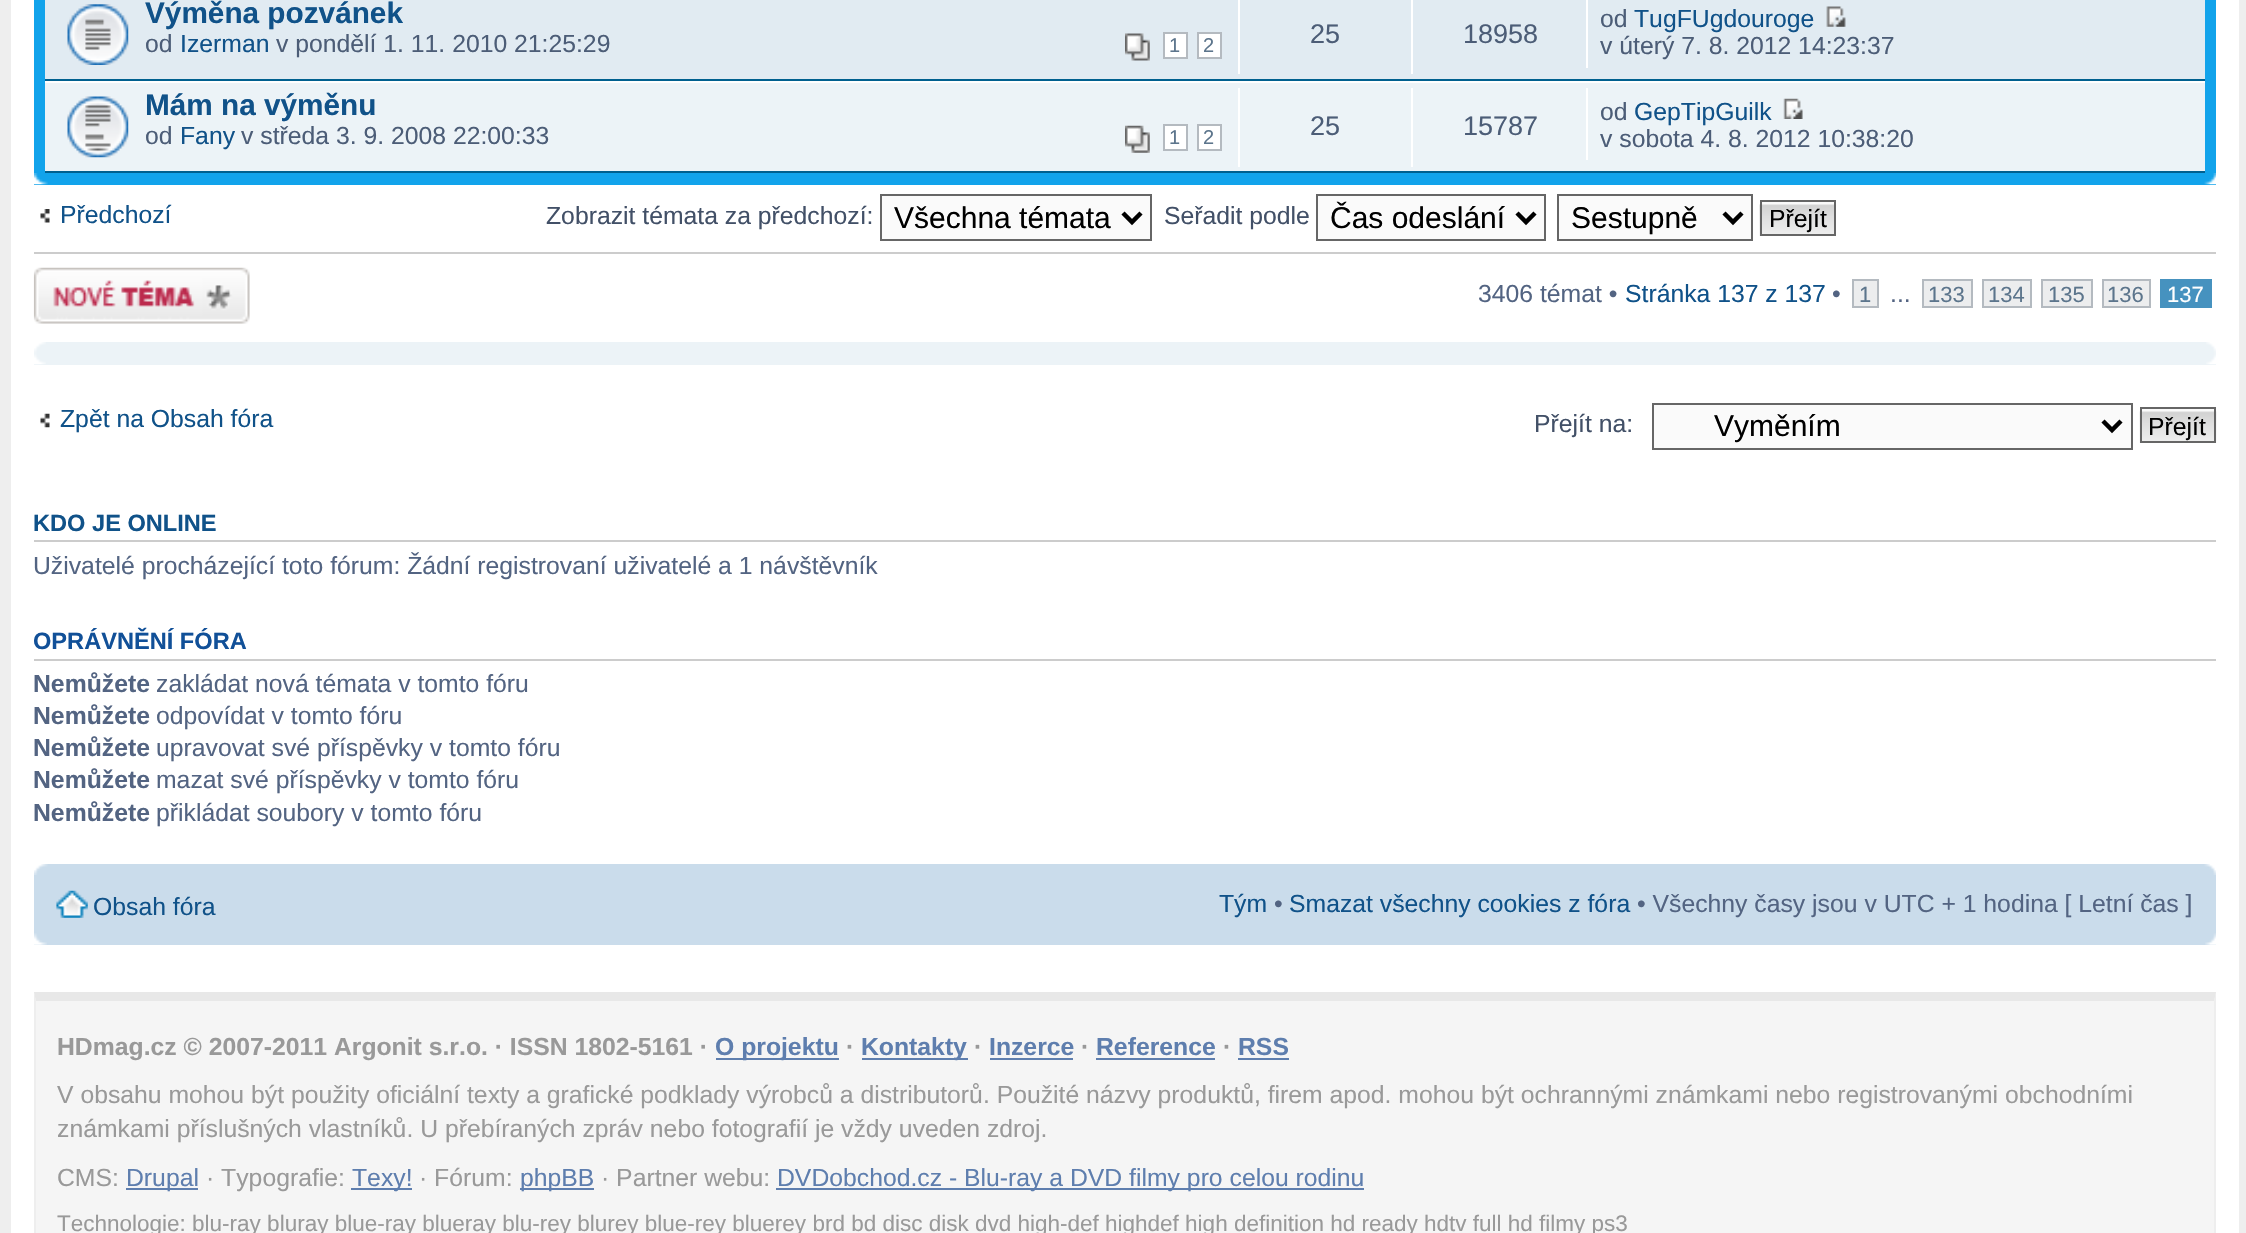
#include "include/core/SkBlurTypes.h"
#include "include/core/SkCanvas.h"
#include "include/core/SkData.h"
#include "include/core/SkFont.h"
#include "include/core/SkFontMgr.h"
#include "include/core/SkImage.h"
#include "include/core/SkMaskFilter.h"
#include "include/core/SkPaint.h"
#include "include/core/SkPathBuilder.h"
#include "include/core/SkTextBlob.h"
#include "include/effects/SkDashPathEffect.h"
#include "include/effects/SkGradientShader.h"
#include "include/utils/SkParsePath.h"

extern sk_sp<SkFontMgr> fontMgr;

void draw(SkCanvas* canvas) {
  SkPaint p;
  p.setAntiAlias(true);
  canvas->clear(SkColorSetRGB(238, 238, 238));
  p.setColor(SK_ColorWHITE);
  canvas->drawRect(SkRect::MakeLTRB(11, 0, 2239, 1233), p);
  p.setColor(SkColorSetRGB(18, 163, 235));
  canvas->drawRect(SkRect::MakeLTRB(34, 0, 2216, 185), p);
  p.setColor(SkColorSetRGB(225, 235, 242));
  canvas->drawRect(SkRect::MakeLTRB(45, 0, 2205, 79), p);
  p.setColor(SkColorSetRGB(0, 96, 143));
  canvas->drawRect(SkRect::MakeLTRB(45, 79, 2205, 81), p);
  canvas->drawImageRect(SkImages::DeferredFromEncodedData(SkData::MakeFromFileName("images/1.png")), SkRect::MakeLTRB(67, 4, 129, 65), SkSamplingOptions());
  canvas->drawImageRect(SkImages::DeferredFromEncodedData(SkData::MakeFromFileName("images/2.png")), SkRect::MakeLTRB(1125, 33, 1150, 61), SkSamplingOptions());
  p.setColor(SK_ColorWHITE);
  canvas->drawRect(SkRect::MakeLTRB(1164, 33, 1187, 58), p);
  p.setStyle(SkPaint::kStroke_Style);
  p.setStrokeWidth(2);
  p.setColor(SkColorSetRGB(180, 186, 192));
  canvas->drawRect(SkRect::MakeLTRB(1164, 33, 1187, 58), p);
  p.setStyle(SkPaint::kFill_Style);
  p.setColor(SK_ColorWHITE);
  canvas->drawRect(SkRect::MakeLTRB(1198, 33, 1221, 58), p);
  p.setStyle(SkPaint::kStroke_Style);
  p.setColor(SkColorSetRGB(180, 186, 192));
  canvas->drawRect(SkRect::MakeLTRB(1198, 33, 1221, 58), p);
  p.setStyle(SkPaint::kFill_Style);
  p.setColor(SK_ColorWHITE);
  canvas->drawRect(SkRect::MakeLTRB(1238, 0, 1240, 74), p);
  canvas->drawRect(SkRect::MakeLTRB(1411, 0, 1413, 74), p);
  canvas->drawRect(SkRect::MakeLTRB(1586, 0, 1588, 68), p);
  canvas->drawImageRect(SkImages::DeferredFromEncodedData(SkData::MakeFromFileName("images/3.png")), SkRect::MakeLTRB(1826, 6, 1846, 27), SkSamplingOptions());
  p.setColor(SkColorSetRGB(236, 243, 247));
  canvas->drawRect(SkRect::MakeLTRB(45, 83, 2205, 171), p);
  p.setColor(SK_ColorWHITE);
  canvas->drawRect(SkRect::MakeLTRB(45, 81, 2205, 83), p);
  p.setColor(SkColorSetRGB(0, 96, 143));
  canvas->drawRect(SkRect::MakeLTRB(45, 171, 2205, 173), p);
  canvas->drawImageRect(SkImages::DeferredFromEncodedData(SkData::MakeFromFileName("images/4.png")), SkRect::MakeLTRB(67, 96, 129, 158), SkSamplingOptions());
  canvas->drawImageRect(SkImages::DeferredFromEncodedData(SkData::MakeFromFileName("images/5.png")), SkRect::MakeLTRB(1125, 125, 1150, 153), SkSamplingOptions());
  p.setColor(SK_ColorWHITE);
  canvas->drawRect(SkRect::MakeLTRB(1164, 125, 1187, 150), p);
  p.setStyle(SkPaint::kStroke_Style);
  p.setColor(SkColorSetRGB(180, 186, 192));
  canvas->drawRect(SkRect::MakeLTRB(1164, 125, 1187, 150), p);
  p.setStyle(SkPaint::kFill_Style);
  p.setColor(SK_ColorWHITE);
  canvas->drawRect(SkRect::MakeLTRB(1198, 125, 1221, 150), p);
  p.setStyle(SkPaint::kStroke_Style);
  p.setColor(SkColorSetRGB(180, 186, 192));
  canvas->drawRect(SkRect::MakeLTRB(1198, 125, 1221, 150), p);
  p.setStyle(SkPaint::kFill_Style);
  p.setColor(SK_ColorWHITE);
  canvas->drawRect(SkRect::MakeLTRB(1238, 88, 1240, 167), p);
  canvas->drawRect(SkRect::MakeLTRB(1411, 88, 1413, 167), p);
  canvas->drawRect(SkRect::MakeLTRB(1586, 88, 1588, 160), p);
  canvas->drawImageRect(SkImages::DeferredFromEncodedData(SkData::MakeFromFileName("images/6.png")), SkRect::MakeLTRB(1783, 98, 1803, 119), SkSamplingOptions());
  canvas->drawImageRect(SkImages::DeferredFromEncodedData(SkData::MakeFromFileName("images/7.png")), SkRect::MakeLTRB(34, 173, 48, 185), SkSamplingOptions());
  canvas->drawImageRect(SkImages::DeferredFromEncodedData(SkData::MakeFromFileName("images/8.png")), SkRect::MakeLTRB(2204, 173, 2216, 185), SkSamplingOptions());
  canvas->drawImageRect(SkImages::DeferredFromEncodedData(SkData::MakeFromFileName("images/9.png")), SkRect::MakeLTRB(40, 209, 50, 223), SkSamplingOptions());
  p.setColor(SkColorSetRGB(250, 250, 250));
  canvas->drawRect(SkRect::MakeLTRB(881, 195, 1151, 240), p);
  p.setStyle(SkPaint::kStroke_Style);
  p.setColor(SkColorSetRGB(102, 102, 102));
  canvas->drawRect(SkRect::MakeLTRB(881, 195, 1151, 240), p);
  p.setStrokeWidth(4.5f);
  p.setColor(SK_ColorBLACK);
  canvas->drawPath(SkPathBuilder().moveTo(1123, 213).lineTo(1132, 222).lineTo(1141, 213).detach(), p);
  p.setStyle(SkPaint::kFill_Style);
  p.setColor(SkColorSetRGB(250, 250, 250));
  canvas->drawRect(SkRect::MakeLTRB(1317, 195, 1545, 240), p);
  p.setStyle(SkPaint::kStroke_Style);
  p.setStrokeWidth(2);
  p.setColor(SkColorSetRGB(102, 102, 102));
  canvas->drawRect(SkRect::MakeLTRB(1317, 195, 1545, 240), p);
  p.setStrokeWidth(4.5f);
  p.setColor(SK_ColorBLACK);
  canvas->drawPath(SkPathBuilder().moveTo(1517, 213).lineTo(1526, 222).lineTo(1535, 213).detach(), p);
  p.setStyle(SkPaint::kFill_Style);
  p.setColor(SkColorSetRGB(250, 250, 250));
  canvas->drawRect(SkRect::MakeLTRB(1558, 195, 1752, 240), p);
  p.setStyle(SkPaint::kStroke_Style);
  p.setStrokeWidth(2);
  p.setColor(SkColorSetRGB(102, 102, 102));
  canvas->drawRect(SkRect::MakeLTRB(1558, 195, 1752, 240), p);
  p.setStrokeWidth(4.5f);
  p.setColor(SK_ColorBLACK);
  canvas->drawPath(SkPathBuilder().moveTo(1724, 213).lineTo(1733, 222).lineTo(1742, 213).detach(), p);
  p.setStyle(SkPaint::kFill_Style);
  p.setColor(SkColorSetRGB(250, 250, 250));
  canvas->drawRect(SkRect::MakeLTRB(1762, 202, 1834, 204), p);
  canvas->drawImageRect(SkImages::DeferredFromEncodedData(SkData::MakeFromFileName("images/10.png")), SkRect::MakeLTRB(1759, 204, 1834, 236), SkSamplingOptions());
  p.setStyle(SkPaint::kStroke_Style);
  p.setStrokeWidth(2);
  p.setColor(SkColorSetRGB(102, 102, 102));
  canvas->drawRect(SkRect::MakeLTRB(1761, 201, 1835, 235), p);
  p.setStyle(SkPaint::kFill_Style);
  p.setColor(SkColorSetRGB(204, 204, 204));
  canvas->drawRect(SkRect::MakeLTRB(34, 252, 2216, 254), p);
  canvas->drawImageRect(SkImages::DeferredFromEncodedData(SkData::MakeFromFileName("images/11.png")), SkRect::MakeLTRB(33, 267, 250, 324), SkSamplingOptions());
  p.setColor(SkColorSetRGB(236, 237, 238));
  canvas->drawRect(SkRect::MakeLTRB(1853, 280, 1878, 307), p);
  p.setStyle(SkPaint::kStroke_Style);
  p.setColor(SkColorSetRGB(180, 186, 192));
  canvas->drawRect(SkRect::MakeLTRB(1853, 280, 1878, 307), p);
  p.setStyle(SkPaint::kFill_Style);
  p.setColor(SkColorSetRGB(236, 237, 238));
  canvas->drawRect(SkRect::MakeLTRB(1923, 280, 1972, 307), p);
  p.setStyle(SkPaint::kStroke_Style);
  p.setColor(SkColorSetRGB(180, 186, 192));
  canvas->drawRect(SkRect::MakeLTRB(1923, 280, 1972, 307), p);
  p.setStyle(SkPaint::kFill_Style);
  p.setColor(SkColorSetRGB(236, 237, 238));
  canvas->drawRect(SkRect::MakeLTRB(1983, 280, 2031, 307), p);
  p.setStyle(SkPaint::kStroke_Style);
  p.setColor(SkColorSetRGB(180, 186, 192));
  canvas->drawRect(SkRect::MakeLTRB(1983, 280, 2031, 307), p);
  p.setStyle(SkPaint::kFill_Style);
  p.setColor(SkColorSetRGB(236, 237, 238));
  canvas->drawRect(SkRect::MakeLTRB(2042, 280, 2092, 307), p);
  p.setStyle(SkPaint::kStroke_Style);
  p.setColor(SkColorSetRGB(180, 186, 192));
  canvas->drawRect(SkRect::MakeLTRB(2042, 280, 2092, 307), p);
  p.setStyle(SkPaint::kFill_Style);
  p.setColor(SkColorSetRGB(236, 237, 238));
  canvas->drawRect(SkRect::MakeLTRB(2103, 280, 2150, 307), p);
  p.setStyle(SkPaint::kStroke_Style);
  p.setColor(SkColorSetRGB(180, 186, 192));
  canvas->drawRect(SkRect::MakeLTRB(2103, 280, 2150, 307), p);
  p.setStyle(SkPaint::kFill_Style);
  p.setColor(SkColorSetRGB(70, 146, 191));
  canvas->drawRect(SkRect::MakeLTRB(2160, 279, 2212, 308), p);
  p.setColor(SkColorSetRGB(236, 243, 247));
  canvas->drawRect(SkRect::MakeLTRB(34, 342, 2216, 365), p);
  canvas->drawImageRect(SkImages::DeferredFromEncodedData(SkData::MakeFromFileName("images/12.png")), SkRect::MakeLTRB(34, 342, 46, 353), SkSamplingOptions());
  canvas->drawImageRect(SkImages::DeferredFromEncodedData(SkData::MakeFromFileName("images/13.png")), SkRect::MakeLTRB(2206, 342, 2216, 353), SkSamplingOptions());
  canvas->drawImageRect(SkImages::DeferredFromEncodedData(SkData::MakeFromFileName("images/14.png")), SkRect::MakeLTRB(34, 353, 46, 365), SkSamplingOptions());
  canvas->drawImageRect(SkImages::DeferredFromEncodedData(SkData::MakeFromFileName("images/15.png")), SkRect::MakeLTRB(2206, 353, 2216, 365), SkSamplingOptions());
  canvas->drawImageRect(SkImages::DeferredFromEncodedData(SkData::MakeFromFileName("images/16.png")), SkRect::MakeLTRB(40, 413, 50, 428), SkSamplingOptions());
  p.setColor(SkColorSetRGB(250, 250, 250));
  canvas->drawRect(SkRect::MakeLTRB(1653, 404, 2132, 449), p);
  p.setStyle(SkPaint::kStroke_Style);
  p.setColor(SkColorSetRGB(102, 102, 102));
  canvas->drawRect(SkRect::MakeLTRB(1653, 404, 2132, 449), p);
  p.setStrokeWidth(4.5f);
  p.setColor(SK_ColorBLACK);
  canvas->drawPath(SkPathBuilder().moveTo(2103, 421).lineTo(2112, 430).lineTo(2121, 421).detach(), p);
  p.setStyle(SkPaint::kFill_Style);
  p.setColor(SkColorSetRGB(250, 250, 250));
  canvas->drawRect(SkRect::MakeLTRB(2142, 409, 2214, 411), p);
  canvas->drawImageRect(SkImages::DeferredFromEncodedData(SkData::MakeFromFileName("images/17.png")), SkRect::MakeLTRB(2139, 411, 2217, 443), SkSamplingOptions());
  p.setStyle(SkPaint::kStroke_Style);
  p.setStrokeWidth(2);
  p.setColor(SkColorSetRGB(102, 102, 102));
  canvas->drawRect(SkRect::MakeLTRB(2141, 408, 2215, 442), p);
  p.setStyle(SkPaint::kFill_Style);
  p.setColor(SkColorSetRGB(204, 204, 204));
  canvas->drawRect(SkRect::MakeLTRB(34, 540, 2216, 542), p);
  canvas->drawRect(SkRect::MakeLTRB(34, 659, 2216, 661), p);
  p.setColor(SkColorSetRGB(202, 220, 235));
  canvas->drawRect(SkRect::MakeLTRB(34, 864, 2216, 945), p);
  canvas->drawImageRect(SkImages::DeferredFromEncodedData(SkData::MakeFromFileName("images/18.png")), SkRect::MakeLTRB(34, 864, 48, 875), SkSamplingOptions());
  canvas->drawImageRect(SkImages::DeferredFromEncodedData(SkData::MakeFromFileName("images/19.png")), SkRect::MakeLTRB(2204, 864, 2216, 875), SkSamplingOptions());
  canvas->drawImageRect(SkImages::DeferredFromEncodedData(SkData::MakeFromFileName("images/20.png")), SkRect::MakeLTRB(56, 890, 88, 918), SkSamplingOptions());
  canvas->drawImageRect(SkImages::DeferredFromEncodedData(SkData::MakeFromFileName("images/21.png")), SkRect::MakeLTRB(34, 933, 47, 945), SkSamplingOptions());
  canvas->drawImageRect(SkImages::DeferredFromEncodedData(SkData::MakeFromFileName("images/22.png")), SkRect::MakeLTRB(2205, 933, 2216, 945), SkSamplingOptions());
  p.setColor(SkColorSetRGB(245, 245, 245));
  canvas->drawRect(SkRect::MakeLTRB(34, 992, 2216, 1233), p);
  p.setColor(SkColorSetRGB(232, 232, 232));
  canvas->drawPath(SkPathBuilder().moveTo(34, 992).lineTo(2216, 992).lineTo(2214, 1001).lineTo(36, 1001).close().detach(), p);
  p.setColor(SkColorSetRGB(238, 238, 238));
  canvas->drawPath(SkPathBuilder().moveTo(2216, 992).lineTo(2216, 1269).lineTo(2214, 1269).lineTo(2214, 1001).close().detach(), p);
  canvas->drawPath(SkPathBuilder().moveTo(34, 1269).lineTo(34, 992).lineTo(36, 1001).lineTo(36, 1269).close().detach(), p);
  p.setColor(SkColorSetRGB(94, 126, 174));
  canvas->drawRect(SkRect::MakeLTRB(716, 1058, 839, 1060), p);
  canvas->drawRect(SkRect::MakeLTRB(862, 1058, 968, 1060), p);
  canvas->drawRect(SkRect::MakeLTRB(990, 1058, 1073, 1060), p);
  canvas->drawRect(SkRect::MakeLTRB(1096, 1058, 1215, 1060), p);
  canvas->drawRect(SkRect::MakeLTRB(1238, 1058, 1289, 1060), p);
  canvas->drawRect(SkRect::MakeLTRB(126, 1188, 198, 1190), p);
  canvas->drawRect(SkRect::MakeLTRB(351, 1188, 412, 1190), p);
  canvas->drawRect(SkRect::MakeLTRB(520, 1188, 594, 1190), p);
  canvas->drawRect(SkRect::MakeLTRB(776, 1188, 1364, 1190), p);
  SkFont font1(fontMgr->matchFamilyStyle("Liberation Sans", SkFontStyle::Bold()), 29.75f);
  font1.setSubpixel(true);
  p.setColor(SkColorSetRGB(16, 82, 137));
  canvas->drawString("Výměna pozvánek", 145, 23, font1, p);
  SkFont font2(fontMgr->matchFamilyStyle("Liberation Sans", SkFontStyle::Normal()), 24.75f);
  font2.setSubpixel(true);
  p.setColor(SkColorSetRGB(76, 93, 119));
  canvas->drawString("od", 145, 52, font2, p);
  p.setColor(SkColorSetRGB(16, 82, 137));
  canvas->drawString("Izerman", 180, 52, font2, p);
  p.setColor(SkColorSetRGB(76, 93, 119));
  canvas->drawString("v pondělí 1. 11. 2010 21:25:29", 276, 52, font2, p);
  SkFont font3(fontMgr->matchFamilyStyle("Liberation Sans", SkFontStyle::Normal()), 20);
  font3.setSubpixel(true);
  p.setColor(SkColorSetRGB(92, 117, 140));
  canvas->drawString("1", 1169, 52, font3, p);
  canvas->drawString("2", 1203, 52, font3, p);
  SkFont font4(fontMgr->matchFamilyStyle("Liberation Sans", SkFontStyle::Normal()), 27);
  font4.setSubpixel(true);
  p.setColor(SkColorSetRGB(76, 93, 119));
  canvas->drawString("25", 1310, 43, font4, p);
  canvas->drawString("18958", 1463, 43, font4, p);
  canvas->drawString("od", 1600, 27, font2, p);
  p.setColor(SkColorSetRGB(16, 82, 137));
  canvas->drawString("TugFUgdouroge", 1634, 27, font2, p);
  p.setColor(SkColorSetRGB(76, 93, 119));
  canvas->drawString("v úterý 7. 8. 2012 14:23:37", 1600, 54, font2, p);
  p.setColor(SkColorSetRGB(16, 82, 137));
  canvas->drawString("Mám na výměnu", 145, 115, font1, p);
  p.setColor(SkColorSetRGB(76, 93, 119));
  canvas->drawString("od", 145, 144, font2, p);
  p.setColor(SkColorSetRGB(16, 82, 137));
  canvas->drawString("Fany", 180, 144, font2, p);
  p.setColor(SkColorSetRGB(76, 93, 119));
  canvas->drawString("v středa 3. 9. 2008 22:00:33", 241, 144, font2, p);
  p.setColor(SkColorSetRGB(92, 117, 140));
  canvas->drawString("1", 1169, 144, font3, p);
  canvas->drawString("2", 1203, 144, font3, p);
  p.setColor(SkColorSetRGB(76, 93, 119));
  canvas->drawString("25", 1310, 135, font4, p);
  canvas->drawString("15787", 1463, 135, font4, p);
  canvas->drawString("od", 1600, 120, font2, p);
  p.setColor(SkColorSetRGB(16, 82, 137));
  canvas->drawString("GepTipGuilk", 1634, 120, font2, p);
  p.setColor(SkColorSetRGB(76, 93, 119));
  canvas->drawString("v sobota 4. 8. 2012 10:38:20", 1600, 147, font2, p);
  p.setColor(SkColorSetRGB(16, 82, 137));
  canvas->drawString("Předchozí", 60, 223, font2, p);
  p.setColor(SkColorSetRGB(66, 80, 103));
  canvas->drawString("Zobrazit témata za předchozí:", 546, 224, font2, p);
  SkFont font5(fontMgr->matchFamilyStyle("Liberation Sans", SkFontStyle::Normal()), 30);
  font5.setSubpixel(true);
  p.setColor(SK_ColorBLACK);
  canvas->drawString("Všechna témata", 894, 228, font5, p);
  p.setColor(SkColorSetRGB(66, 80, 103));
  canvas->drawString("Seřadit podle", 1164, 224, font2, p);
  p.setColor(SK_ColorBLACK);
  canvas->drawString("Čas odeslání", 1330, 228, font5, p);
  canvas->drawString("Sestupně", 1571, 228, font5, p);
  canvas->drawString("Přejít", 1769, 227, font2, p);
  p.setColor(SkColorSetRGB(83, 100, 130));
  canvas->drawString("3406 témat •", 1478, 302, font2, p);
  p.setColor(SkColorSetRGB(16, 82, 137));
  canvas->drawString("Stránka 137 z 137", 1625, 302, font2, p);
  p.setColor(SkColorSetRGB(83, 100, 130));
  canvas->drawString("•", 1832, 302, font2, p);
  SkFont font6(fontMgr->matchFamilyStyle("Liberation Sans", SkFontStyle::Normal()), 22);
  font6.setSubpixel(true);
  p.setColor(SkColorSetRGB(92, 117, 140));
  canvas->drawString("1", 1859, 302, font6, p);
  canvas->drawString("133", 1928, 302, font6, p);
  canvas->drawString("134", 1988, 302, font6, p);
  canvas->drawString("135", 2048, 302, font6, p);
  canvas->drawString("136", 2107, 302, font6, p);
  p.setColor(SK_ColorWHITE);
  canvas->drawString("137", 2167, 302, font6, p);
  p.setColor(SkColorSetRGB(83, 100, 130));
  canvas->drawString("...", 1890, 302, font2, p);
  p.setColor(SkColorSetRGB(16, 82, 137));
  canvas->drawString("Zpět na Obsah fóra", 60, 427, font2, p);
  p.setColor(SkColorSetRGB(66, 80, 103));
  canvas->drawString("Přejít na:", 1534, 432, font2, p);
  p.setColor(SK_ColorBLACK);
  canvas->drawString("Vyměním", 1714, 436, font5, p);
  canvas->drawString("Přejít", 2148, 435, font2, p);
  SkFont font7(fontMgr->matchFamilyStyle("Liberation Sans", SkFontStyle::Bold()), 23.6f);
  font7.setSubpixel(true);
  p.setColor(SkColorSetRGB(16, 82, 137));
  canvas->drawString("KDO JE ONLINE", 33, 531, font7, p);
  p.setColor(SkColorSetRGB(83, 100, 130));
  canvas->drawString("Uživatelé procházející toto fórum: Žádní registrovaní uživatelé a 1 návštěvník", 33, 574, font2, p);
  p.setColor(SkColorSetRGB(17, 80, 152));
  canvas->drawString("OPRÁVNĚNÍ FÓRA", 33, 649, font7, p);
  SkFont font8(fontMgr->matchFamilyStyle("Liberation Sans", SkFontStyle::Bold()), 24.75f);
  font8.setSubpixel(true);
  p.setColor(SkColorSetRGB(83, 100, 130));
  canvas->drawString("Nemůžete", 33, 692, font8, p);
  canvas->drawString("zakládat nová témata v tomto fóru", 156, 692, font2, p);
  canvas->drawString("Nemůžete", 33, 724, font8, p);
  canvas->drawString("odpovídat v tomto fóru", 156, 724, font2, p);
  canvas->drawString("Nemůžete", 33, 756, font8, p);
  canvas->drawString("upravovat své příspěvky v tomto fóru", 156, 756, font2, p);
  canvas->drawString("Nemůžete", 33, 788, font8, p);
  canvas->drawString("mazat své příspěvky v tomto fóru", 156, 788, font2, p);
  canvas->drawString("Nemůžete", 33, 821, font8, p);
  canvas->drawString("přikládat soubory v tomto fóru", 156, 821, font2, p);
  p.setColor(SkColorSetRGB(16, 82, 137));
  canvas->drawString("Obsah fóra", 93, 915, font2, p);
  canvas->drawString("Tým", 1219, 912, font2, p);
  p.setColor(SkColorSetRGB(83, 100, 130));
  canvas->drawString("•", 1274, 912, font2, p);
  p.setColor(SkColorSetRGB(16, 82, 137));
  canvas->drawString("Smazat všechny cookies z fóra", 1289, 912, font2, p);
  p.setColor(SkColorSetRGB(83, 100, 130));
  canvas->drawString("• Všechny časy jsou v UTC + 1 hodina [ Letní čas ]", 1637, 912, font2, p);
  p.setColor(SkColorSetRGB(153, 153, 153));
  canvas->drawString("HDmag.cz © 2007-2011 Argonit s.r.o. · ISSN 1802-5161 ·", 57, 1055, font8, p);
  p.setColor(SkColorSetRGB(94, 126, 174));
  canvas->drawString("O projektu", 715, 1055, font8, p);
  p.setColor(SkColorSetRGB(153, 153, 153));
  canvas->drawString("·", 846, 1055, font8, p);
  p.setColor(SkColorSetRGB(94, 126, 174));
  canvas->drawString("Kontakty", 861, 1055, font8, p);
  p.setColor(SkColorSetRGB(153, 153, 153));
  canvas->drawString("·", 974, 1055, font8, p);
  p.setColor(SkColorSetRGB(94, 126, 174));
  canvas->drawString("Inzerce", 989, 1055, font8, p);
  p.setColor(SkColorSetRGB(153, 153, 153));
  canvas->drawString("·", 1081, 1055, font8, p);
  p.setColor(SkColorSetRGB(94, 126, 174));
  canvas->drawString("Reference", 1096, 1055, font8, p);
  p.setColor(SkColorSetRGB(153, 153, 153));
  canvas->drawString("·", 1223, 1055, font8, p);
  p.setColor(SkColorSetRGB(94, 126, 174));
  canvas->drawString("RSS", 1238, 1055, font8, p);
  p.setColor(SkColorSetRGB(153, 153, 153));
  canvas->drawString("V obsahu mohou být použity oficiální texty a grafické podklady výrobců a distributorů. Použité názvy produktů, firem apod. mohou být ochrannými známkami nebo registrovanými obchodními", 57, 1103, font2, p);
  canvas->drawString("známkami příslušných vlastníků. U přebíraných zpráv nebo fotografií je vždy uveden zdroj.", 57, 1137, font2, p);
  canvas->drawString("CMS:", 57, 1186, font2, p);
  p.setColor(SkColorSetRGB(94, 126, 174));
  canvas->drawString("Drupal", 126, 1186, font2, p);
  p.setColor(SkColorSetRGB(153, 153, 153));
  canvas->drawString("· Typografie:", 206, 1186, font2, p);
  p.setColor(SkColorSetRGB(94, 126, 174));
  canvas->drawString("Texy!", 352, 1186, font2, p);
  p.setColor(SkColorSetRGB(153, 153, 153));
  canvas->drawString("· Fórum:", 419, 1186, font2, p);
  p.setColor(SkColorSetRGB(94, 126, 174));
  canvas->drawString("phpBB", 520, 1186, font2, p);
  p.setColor(SkColorSetRGB(153, 153, 153));
  canvas->drawString("· Partner webu:", 601, 1186, font2, p);
  p.setColor(SkColorSetRGB(94, 126, 174));
  canvas->drawString("DVDobchod.cz - Blu-ray a DVD filmy pro celou rodinu", 777, 1186, font2, p);
  SkFont font9(fontMgr->matchFamilyStyle("Liberation Sans", SkFontStyle::Normal()), 22.5f);
  font9.setSubpixel(true);
  p.setColor(SkColorSetRGB(153, 153, 153));
  canvas->drawString("Technologie: blu-ray bluray blue-ray blueray blu-rey blurey blue-rey bluerey brd bd disc disk dvd high-def highdef high definition hd ready hdtv full hd filmy ps3", 57, 1231, font9, p);
}
